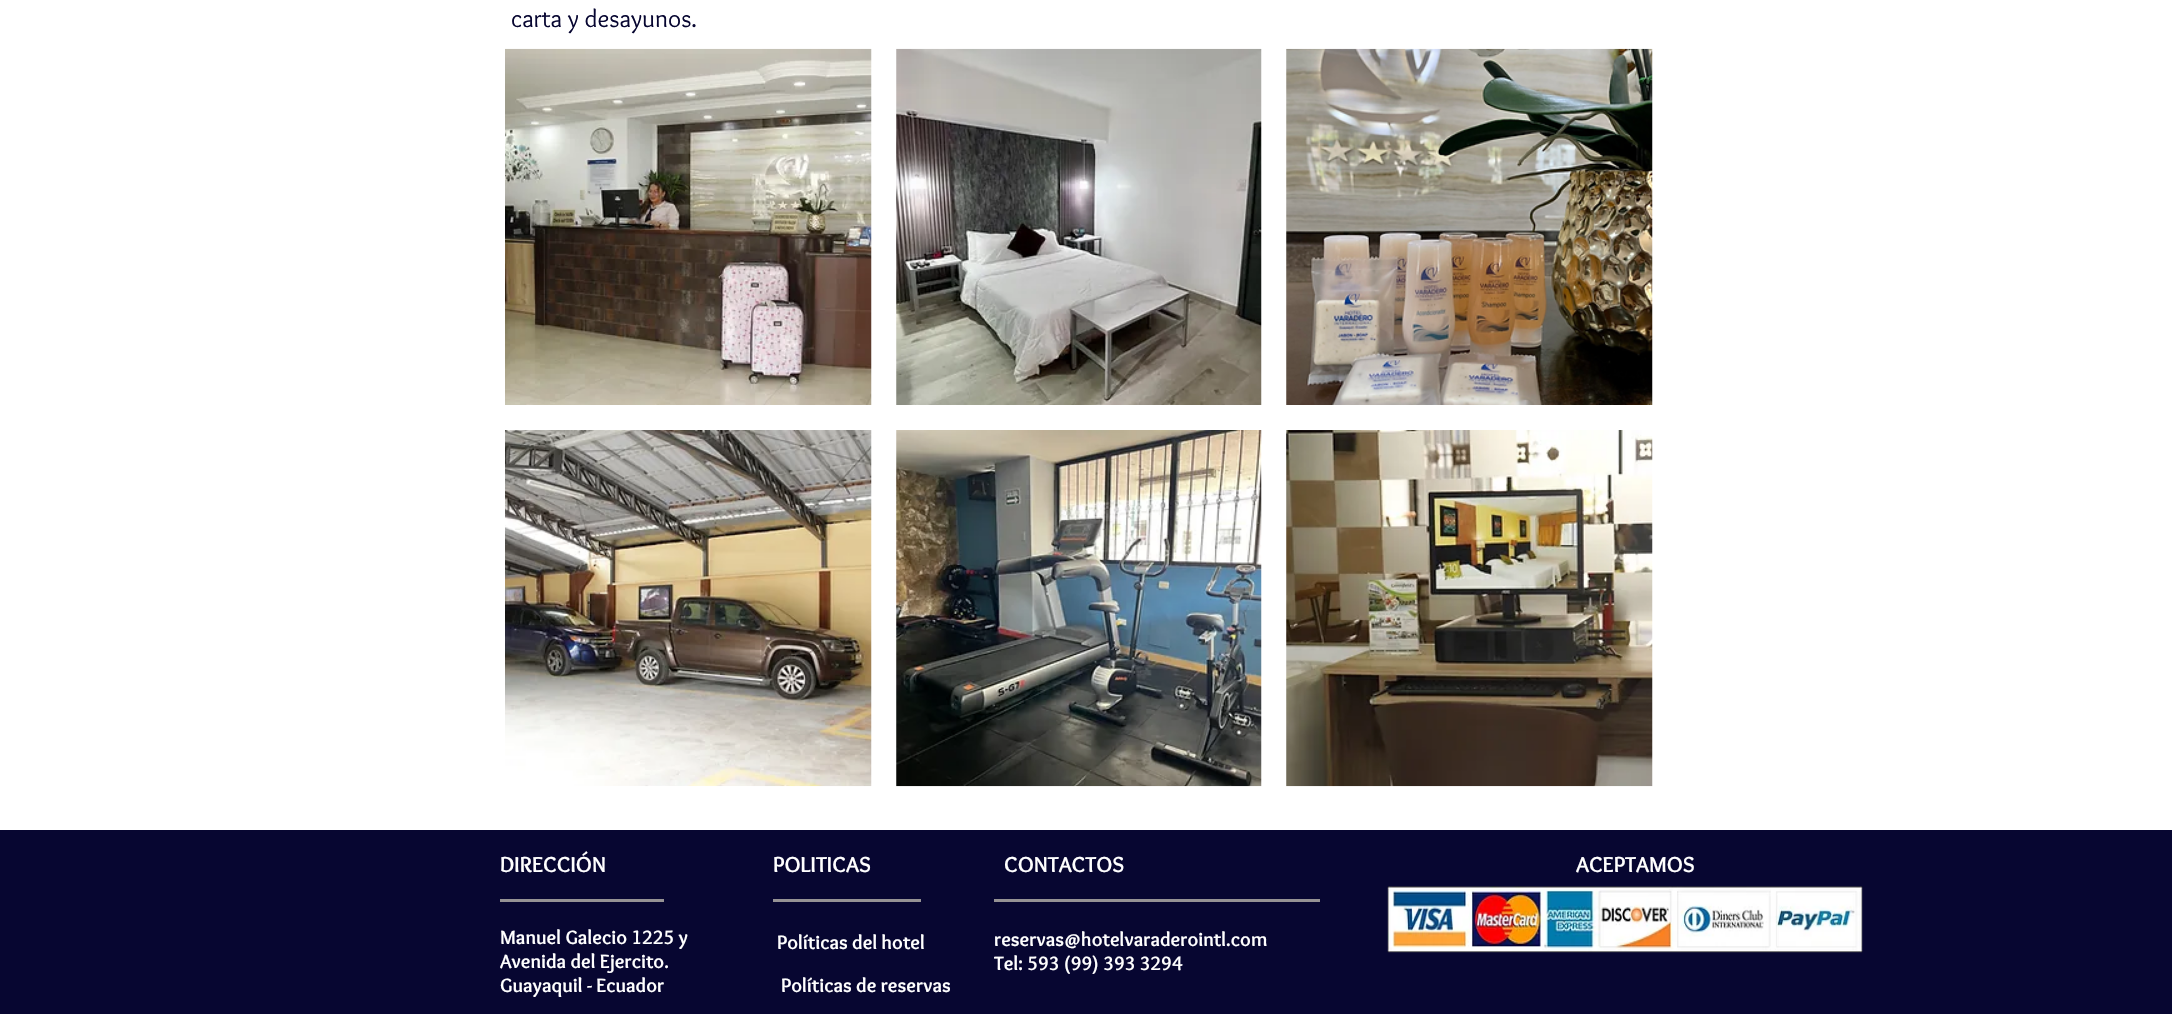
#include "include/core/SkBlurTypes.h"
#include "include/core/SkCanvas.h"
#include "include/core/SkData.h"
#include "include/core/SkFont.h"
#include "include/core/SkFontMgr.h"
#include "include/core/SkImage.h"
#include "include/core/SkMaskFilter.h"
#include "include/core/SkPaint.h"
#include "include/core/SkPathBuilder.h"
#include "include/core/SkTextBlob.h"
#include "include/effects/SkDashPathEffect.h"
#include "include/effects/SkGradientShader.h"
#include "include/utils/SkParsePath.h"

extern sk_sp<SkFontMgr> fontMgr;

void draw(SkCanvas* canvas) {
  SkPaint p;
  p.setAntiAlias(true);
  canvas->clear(SK_ColorWHITE);
  canvas->drawImageRect(SkImages::DeferredFromEncodedData(SkData::MakeFromFileName("images/1.png")), SkRect::MakeLTRB(505, 48, 872, 405), SkSamplingOptions());
  canvas->drawImageRect(SkImages::DeferredFromEncodedData(SkData::MakeFromFileName("images/2.png")), SkRect::MakeLTRB(896, 48, 1262, 405), SkSamplingOptions());
  canvas->drawImageRect(SkImages::DeferredFromEncodedData(SkData::MakeFromFileName("images/3.png")), SkRect::MakeLTRB(1286, 48, 1653, 405), SkSamplingOptions());
  canvas->drawImageRect(SkImages::DeferredFromEncodedData(SkData::MakeFromFileName("images/4.png")), SkRect::MakeLTRB(505, 430, 872, 787), SkSamplingOptions());
  canvas->drawImageRect(SkImages::DeferredFromEncodedData(SkData::MakeFromFileName("images/5.png")), SkRect::MakeLTRB(896, 430, 1262, 787), SkSamplingOptions());
  canvas->drawImageRect(SkImages::DeferredFromEncodedData(SkData::MakeFromFileName("images/6.png")), SkRect::MakeLTRB(1286, 430, 1653, 787), SkSamplingOptions());
  p.setColor(SkColorSetRGB(7, 6, 49));
  canvas->drawRect(SkRect::MakeLTRB(0, 830, 2172, 1014), p);
  p.setColor(SkColorSetRGB(149, 146, 148));
  canvas->drawRect(SkRect::MakeLTRB(500, 899, 664, 902), p);
  canvas->drawRect(SkRect::MakeLTRB(773, 899, 921, 902), p);
  canvas->drawRect(SkRect::MakeLTRB(994, 899, 1320, 902), p);
  canvas->drawImageRect(SkImages::DeferredFromEncodedData(SkData::MakeFromFileName("images/7.png")), SkRect::MakeLTRB(1387, 886, 1863, 953), SkSamplingOptions());
  SkFont font1(fontMgr->matchFamilyStyle("Overlock", SkFontStyle::Normal()), 25);
  font1.setSubpixel(true);
  p.setColor(SkColorSetRGB(7, 6, 49));
  canvas->drawString("carta y desayunos.", 511, 27, font1, p);
  SkFont font2(fontMgr->matchFamilyStyle("Overlock", SkFontStyle::Bold()), 22.5f);
  font2.setSubpixel(true);
  p.setColor(SK_ColorWHITE);
  canvas->drawString("DIRECCIÓN", 500, 872, font2, p);
  canvas->drawString("POLITICAS", 773, 872, font2, p);
  canvas->drawString("CONTACTOS", 1004, 872, font2, p);
  canvas->drawString("ACEPTAMOS", 1576, 872, font2, p);
  SkFont font3(fontMgr->matchFamilyStyle("Overlock", SkFontStyle::Bold()), 20);
  font3.setSubpixel(true);
  canvas->drawString("Manuel Galecio 1225 y", 500, 944, font3, p);
  canvas->drawString("Avenida del Ejercito.", 500, 968, font3, p);
  canvas->drawString("Guayaquil - Ecuador", 500, 992, font3, p);
  canvas->drawString("Políticas del hotel", 777, 949, font3, p);
  canvas->drawString("reservas@hotelvaraderointl.com", 994, 946, font3, p);
  canvas->drawString("Tel: 593 (99) 393 3294", 994, 970, font3, p);
  canvas->drawString("Políticas de reservas", 781, 992, font3, p);
}
